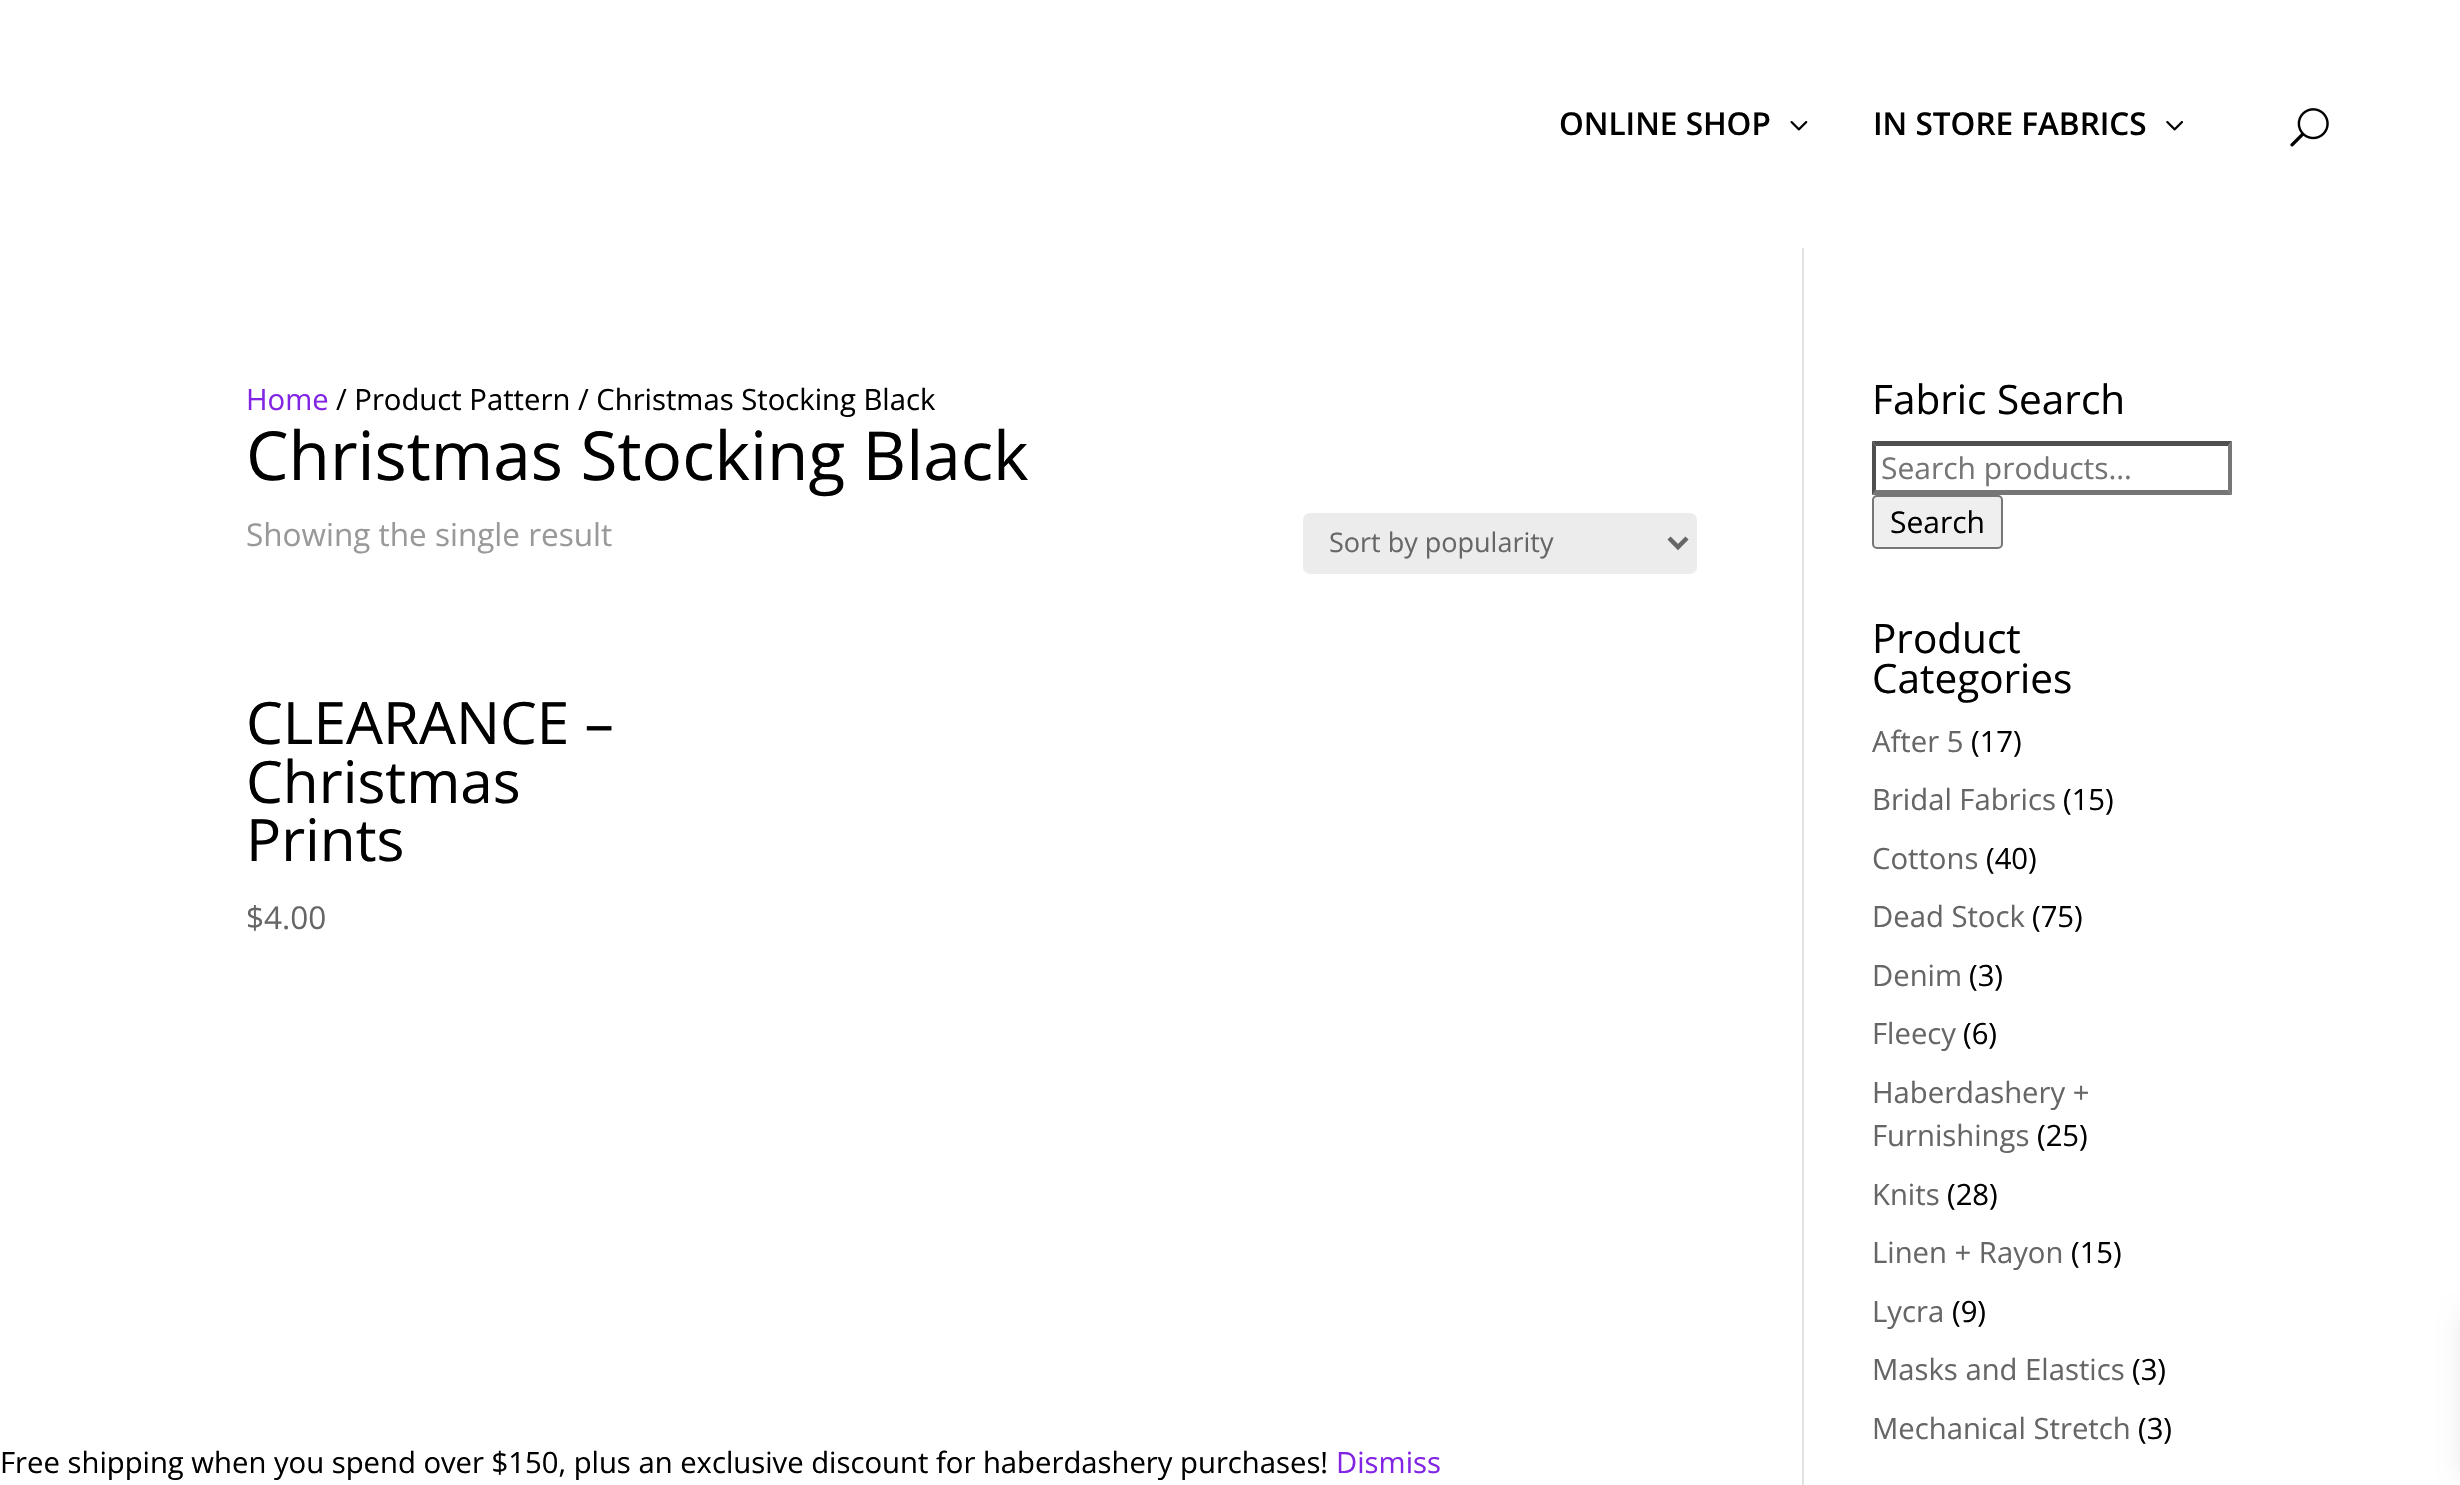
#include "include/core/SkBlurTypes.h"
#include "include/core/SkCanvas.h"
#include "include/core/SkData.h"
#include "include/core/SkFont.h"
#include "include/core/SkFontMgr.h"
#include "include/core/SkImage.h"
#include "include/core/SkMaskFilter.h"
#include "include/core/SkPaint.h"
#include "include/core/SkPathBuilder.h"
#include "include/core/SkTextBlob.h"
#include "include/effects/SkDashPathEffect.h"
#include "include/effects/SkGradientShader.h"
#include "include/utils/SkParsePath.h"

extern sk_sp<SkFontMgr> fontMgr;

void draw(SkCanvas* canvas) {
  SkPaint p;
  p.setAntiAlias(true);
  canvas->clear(SK_ColorWHITE);
  canvas->drawImageRect(SkImages::DeferredFromEncodedData(SkData::MakeFromFileName("images/1.png")), SkRect::MakeLTRB(1790, 121, 1808, 131), SkSamplingOptions());
  canvas->drawImageRect(SkImages::DeferredFromEncodedData(SkData::MakeFromFileName("images/2.png")), SkRect::MakeLTRB(2166, 121, 2183, 131), SkSamplingOptions());
  canvas->drawImageRect(SkImages::DeferredFromEncodedData(SkData::MakeFromFileName("images/3.png")), SkRect::MakeLTRB(2290, 108, 2329, 147), SkSamplingOptions());
  p.setColor(SkColorSetRGB(226, 226, 226));
  canvas->drawRect(SkRect::MakeLTRB(1802, 248, 1804, 1485), p);
  p.setColor(SkColorSetRGB(236, 236, 236));
  canvas->drawRoundRect(SkRect::MakeLTRB(1303, 513, 1697, 574), 7, 7, p);
  p.setStyle(SkPaint::kStroke_Style);
  p.setStrokeWidth(4.5f);
  p.setColor(SkColorSetRGB(102, 102, 102));
  canvas->drawPath(SkPathBuilder().moveTo(1669, 538).lineTo(1678, 547).lineTo(1687, 538).detach(), p);
  p.setStyle(SkPaint::kFill_Style);
  p.setColor(SkColorSetRGB(79, 79, 79));
  canvas->drawPath(SkPathBuilder().moveTo(1872, 441).lineTo(2232, 441).lineTo(2228, 446).lineTo(1876, 446).close().detach(), p);
  p.setColor(SkColorSetRGB(118, 118, 118));
  canvas->drawPath(SkPathBuilder().moveTo(2232, 441).lineTo(2232, 495).lineTo(2228, 490).lineTo(2228, 446).close().detach(), p);
  canvas->drawPath(SkPathBuilder().moveTo(2232, 495).lineTo(1872, 495).lineTo(1876, 490).lineTo(2228, 490).close().detach(), p);
  p.setColor(SkColorSetRGB(79, 79, 79));
  canvas->drawPath(SkPathBuilder().moveTo(1872, 495).lineTo(1872, 441).lineTo(1876, 446).lineTo(1876, 490).close().detach(), p);
  p.setColor(SkColorSetRGB(239, 239, 239));
  canvas->drawRoundRect(SkRect::MakeLTRB(1873, 496, 2002, 548), 4, 4, p);
  p.setStyle(SkPaint::kStroke_Style);
  p.setStrokeWidth(2);
  p.setColor(SkColorSetRGB(118, 118, 118));
  canvas->drawRoundRect(SkRect::MakeLTRB(1873, 496, 2002, 548), 4, 4, p);
  p.setStyle(SkPaint::kFill_Style);
  p.setColor(SkColorSetARGB(26, 0, 0, 0));
  p.setMaskFilter(SkMaskFilter::MakeBlur(kNormal_SkBlurStyle, 11));
  canvas->drawRect(SkRect::MakeLTRB(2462, 1316, 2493, 1474), p);
  p.setMaskFilter(nullptr);
  SkFont font1(fontMgr->matchFamilyStyle("Open Sans", SkFontStyle(600, SkFontStyle::kNormal_Width, SkFontStyle::kUpright_Slant)), 31.5f);
  font1.setSubpixel(true);
  p.setColor(SK_ColorBLACK);
  canvas->drawString("ONLINE SHOP", 1559, 135, font1, p);
  canvas->drawString("IN STORE FABRICS", 1873, 135, font1, p);
  SkFont font2(fontMgr->matchFamilyStyle("Open Sans", SkFontStyle::Normal()), 29.25f);
  font2.setSubpixel(true);
  p.setColor(SkColorSetRGB(130, 36, 227));
  canvas->drawString("Home", 246, 410, font2, p);
  p.setColor(SK_ColorBLACK);
  canvas->drawString("/ Product Pattern / Christmas Stocking Black", 336, 410, font2, p);
  SkFont font3(fontMgr->matchFamilyStyle("Open Sans", SkFontStyle::Normal()), 67.5f);
  font3.setSubpixel(true);
  canvas->drawString("Christmas Stocking Black", 246, 480, font3, p);
  SkFont font4(fontMgr->matchFamilyStyle("Open Sans", SkFontStyle::Normal()), 31.5f);
  font4.setSubpixel(true);
  p.setColor(SkColorSetRGB(153, 153, 153));
  canvas->drawString("Showing the single result", 246, 546, font4, p);
  SkFont font5(fontMgr->matchFamilyStyle("Open Sans", SkFontStyle::Normal()), 27);
  font5.setSubpixel(true);
  p.setColor(SkColorSetRGB(102, 102, 102));
  canvas->drawString("Sort by popularity", 1329, 552, font5, p);
  SkFont font6(fontMgr->matchFamilyStyle("Open Sans", SkFontStyle::Normal()), 58.5f);
  font6.setSubpixel(true);
  p.setColor(SK_ColorBLACK);
  canvas->drawString("CLEARANCE –", 246, 744, font6, p);
  canvas->drawString("Christmas", 246, 803, font6, p);
  canvas->drawString("Prints", 246, 861, font6, p);
  p.setColor(SkColorSetRGB(102, 102, 102));
  canvas->drawString("$4.00", 246, 929, font4, p);
  SkFont font7(fontMgr->matchFamilyStyle("Open Sans", SkFontStyle::Normal()), 40.5f);
  font7.setSubpixel(true);
  p.setColor(SK_ColorBLACK);
  canvas->drawString("Fabric Search", 1872, 414, font7, p);
  SkFont font8(fontMgr->matchFamilyStyle("Open Sans", SkFontStyle::Normal()), 30);
  font8.setSubpixel(true);
  p.setColor(SkColorSetRGB(117, 117, 117));
  canvas->drawString("Search products…", 1881, 479, font8, p);
  p.setColor(SK_ColorBLACK);
  canvas->drawString("Search", 1890, 533, font8, p);
  canvas->drawString("Product", 1872, 653, font7, p);
  canvas->drawString("Categories", 1872, 693, font7, p);
  p.setColor(SkColorSetRGB(102, 102, 102));
  canvas->drawString("After 5", 1872, 752, font2, p);
  p.setColor(SK_ColorBLACK);
  canvas->drawString("(17)", 1971, 752, font2, p);
  p.setColor(SkColorSetRGB(102, 102, 102));
  canvas->drawString("Bridal Fabrics", 1872, 810, font2, p);
  p.setColor(SK_ColorBLACK);
  canvas->drawString("(15)", 2063, 810, font2, p);
  p.setColor(SkColorSetRGB(102, 102, 102));
  canvas->drawString("Cottons", 1872, 869, font2, p);
  p.setColor(SK_ColorBLACK);
  canvas->drawString("(40)", 1986, 869, font2, p);
  p.setColor(SkColorSetRGB(102, 102, 102));
  canvas->drawString("Dead Stock", 1872, 927, font2, p);
  p.setColor(SK_ColorBLACK);
  canvas->drawString("(75)", 2032, 927, font2, p);
  p.setColor(SkColorSetRGB(102, 102, 102));
  canvas->drawString("Denim", 1872, 986, font2, p);
  p.setColor(SK_ColorBLACK);
  canvas->drawString("(3)", 1969, 986, font2, p);
  p.setColor(SkColorSetRGB(102, 102, 102));
  canvas->drawString("Fleecy", 1872, 1044, font2, p);
  p.setColor(SK_ColorBLACK);
  canvas->drawString("(6)", 1963, 1044, font2, p);
  p.setColor(SkColorSetRGB(102, 102, 102));
  canvas->drawString("Haberdashery +", 1872, 1103, font2, p);
  canvas->drawString("Furnishings", 1872, 1146, font2, p);
  p.setColor(SK_ColorBLACK);
  canvas->drawString("(25)", 2037, 1146, font2, p);
  p.setColor(SkColorSetRGB(102, 102, 102));
  canvas->drawString("Knits", 1872, 1205, font2, p);
  p.setColor(SK_ColorBLACK);
  canvas->drawString("(28)", 1947, 1205, font2, p);
  p.setColor(SkColorSetRGB(102, 102, 102));
  canvas->drawString("Linen + Rayon", 1872, 1263, font2, p);
  p.setColor(SK_ColorBLACK);
  canvas->drawString("(15)", 2071, 1263, font2, p);
  p.setColor(SkColorSetRGB(102, 102, 102));
  canvas->drawString("Lycra", 1872, 1322, font2, p);
  p.setColor(SK_ColorBLACK);
  canvas->drawString("(9)", 1952, 1322, font2, p);
  p.setColor(SkColorSetRGB(102, 102, 102));
  canvas->drawString("Masks and Elastics", 1872, 1380, font2, p);
  p.setColor(SK_ColorBLACK);
  canvas->drawString("(3)", 2132, 1380, font2, p);
  p.setColor(SkColorSetRGB(102, 102, 102));
  canvas->drawString("Mechanical Stretch", 1872, 1439, font2, p);
  p.setColor(SK_ColorBLACK);
  canvas->drawString("(3)", 2138, 1439, font2, p);
  canvas->drawString("Free shipping when you spend over $150, plus an exclusive discount for haberdashery purchases!", 0, 1473, font2, p);
  p.setColor(SkColorSetRGB(130, 36, 227));
  canvas->drawString("Dismiss", 1336, 1473, font2, p);
}
